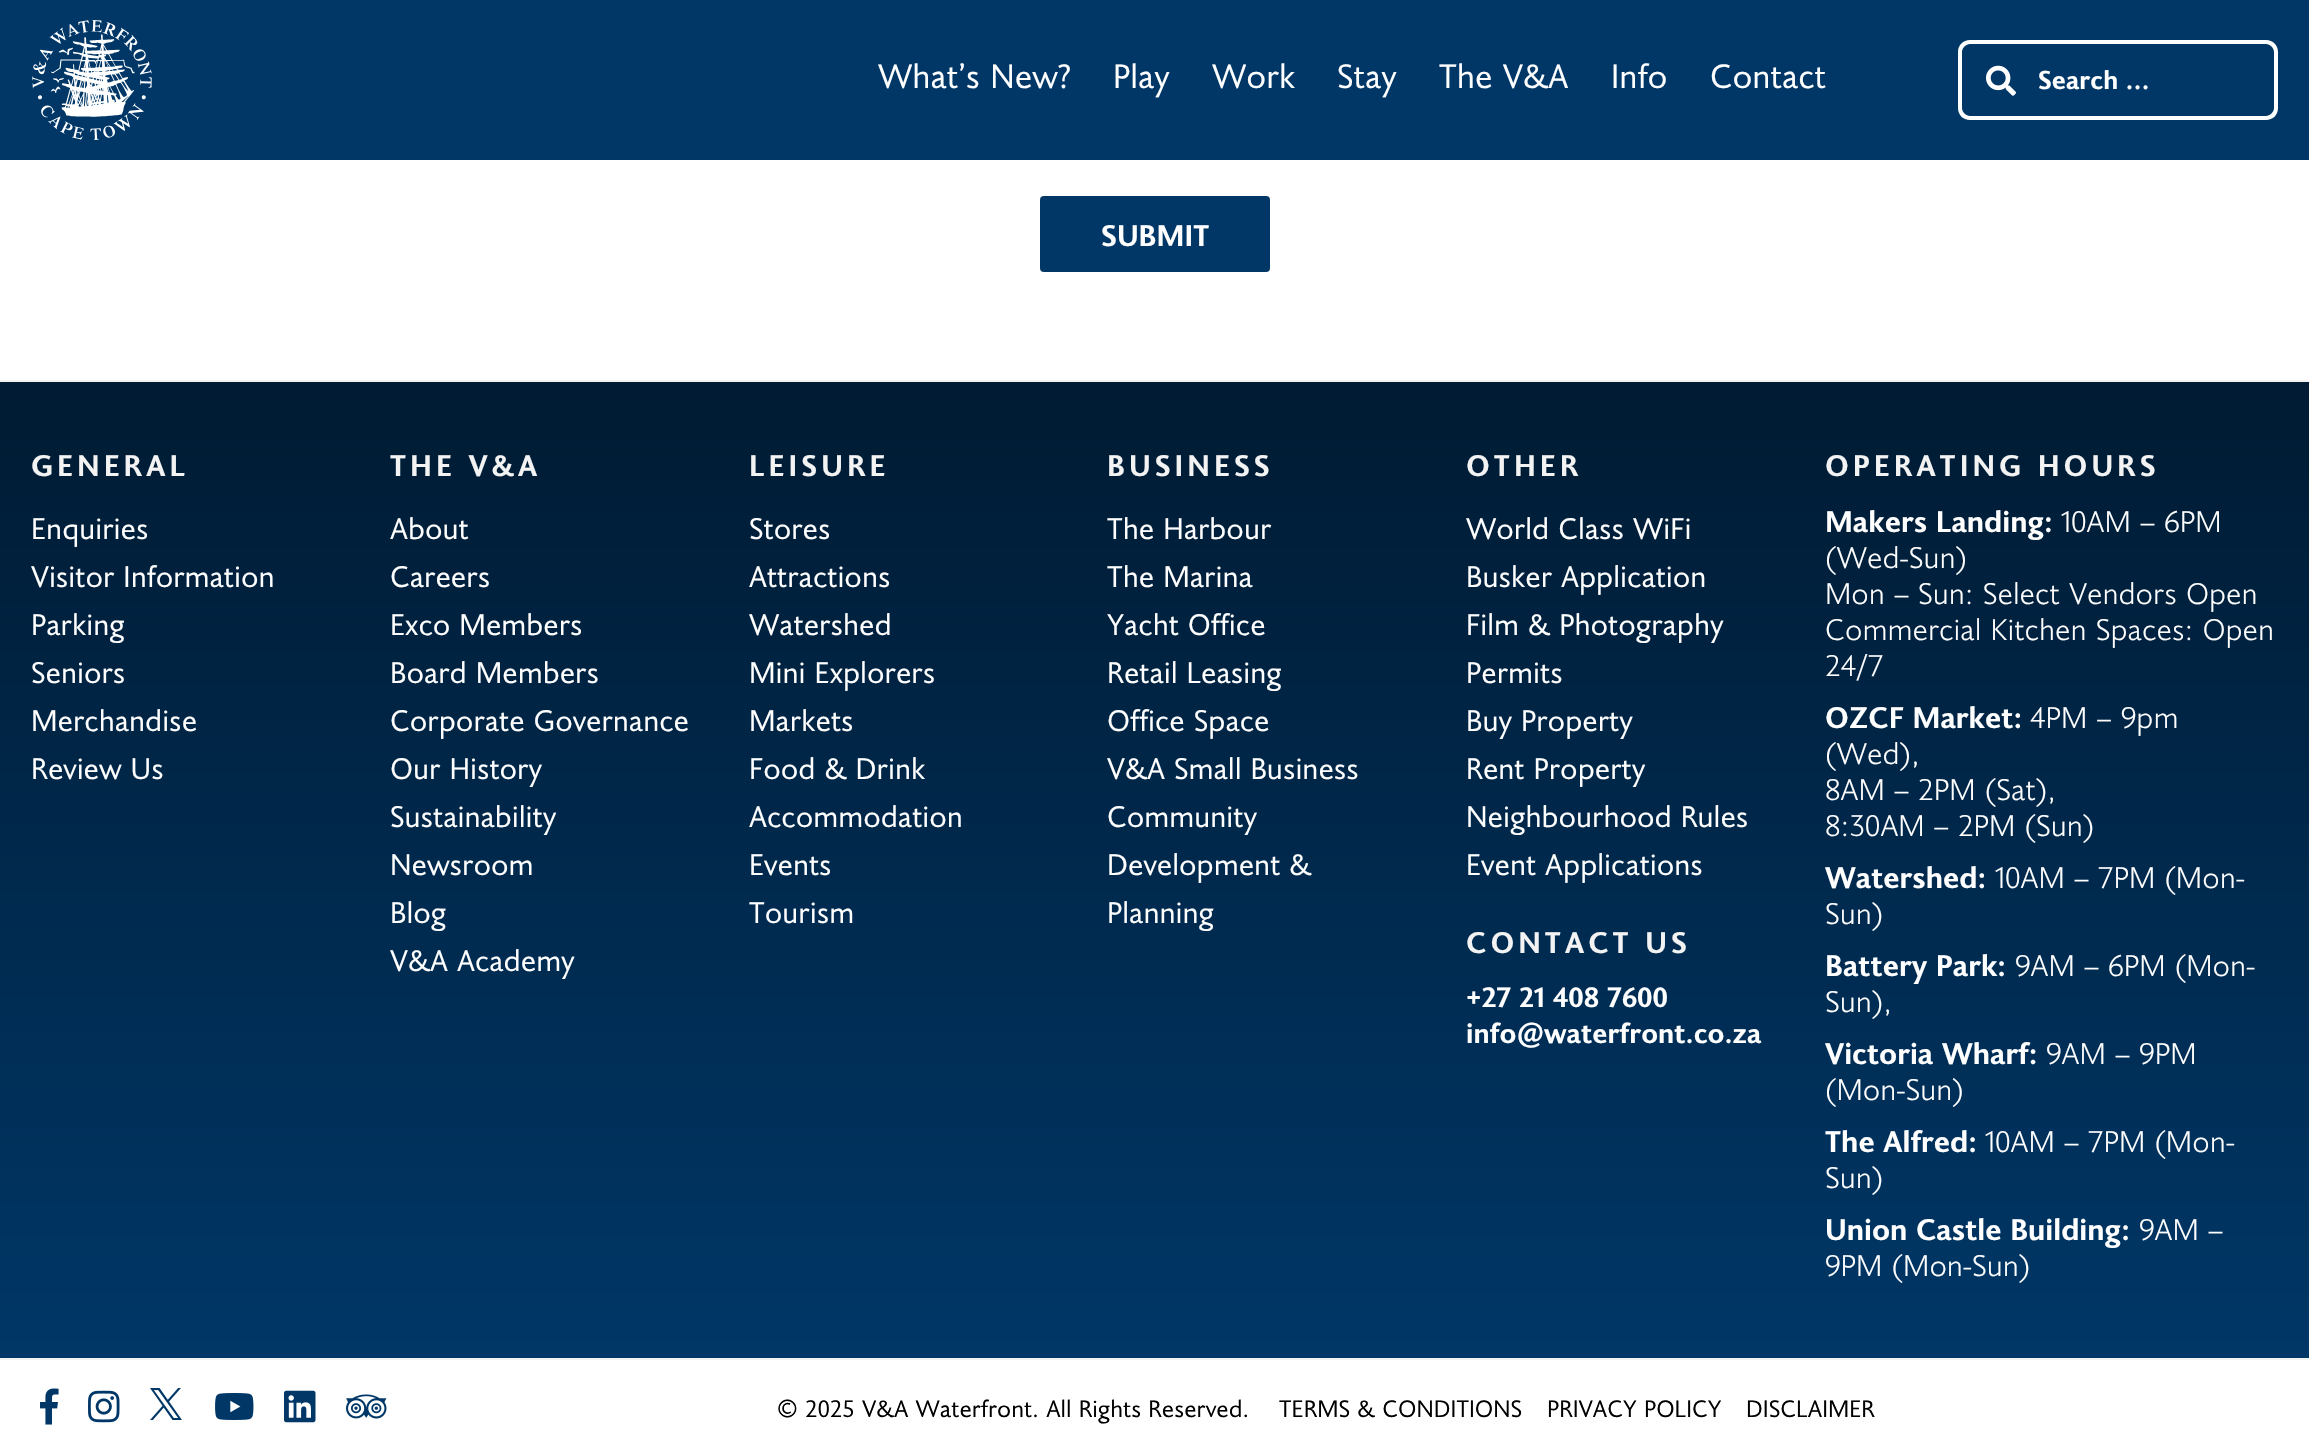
#include "include/core/SkBlurTypes.h"
#include "include/core/SkCanvas.h"
#include "include/core/SkData.h"
#include "include/core/SkFont.h"
#include "include/core/SkFontMgr.h"
#include "include/core/SkImage.h"
#include "include/core/SkMaskFilter.h"
#include "include/core/SkPaint.h"
#include "include/core/SkPathBuilder.h"
#include "include/core/SkTextBlob.h"
#include "include/effects/SkDashPathEffect.h"
#include "include/effects/SkGradientShader.h"
#include "include/utils/SkParsePath.h"

extern sk_sp<SkFontMgr> fontMgr;

void draw(SkCanvas* canvas) {
  SkPaint p;
  p.setAntiAlias(true);
  auto spacedText = [&](const char* s, float x, float y, const SkFont& font, const SkPaint& ink, float letter, float word) {
    std::vector<SkGlyphID> glyphs(font.countText(s, strlen(s), SkTextEncoding::kUTF8));
    std::vector<float> xs(glyphs.size());
    font.textToGlyphs(s, strlen(s), SkTextEncoding::kUTF8, glyphs);
    font.getXPos(glyphs, xs, x);
    float extra = 0;
    for (size_t i = 0; i < glyphs.size(); i++) {
      xs[i] += extra;
      extra += letter + word * (glyphs[i] == font.unicharToGlyph(' '));
    }
    canvas->drawTextBlob(SkTextBlob::MakeFromPosHGlyphs(glyphs, xs, y, font), 0, 0, ink);
  };
  canvas->clear(SK_ColorWHITE);
  p.setColor(SkColorSetRGB(0, 55, 103));
  canvas->drawRect(SkRect::MakeLTRB(0, 0, 2309, 160), p);
  canvas->drawImageRect(SkImages::DeferredFromEncodedData(SkData::MakeFromFileName("images/1.png")), SkRect::MakeLTRB(32, 20, 152, 140), SkSamplingOptions());
  p.setColor(SK_ColorWHITE);
  canvas->drawPath(SkPathBuilder(SkPathFillType::kEvenOdd).moveTo(1970, 40).lineTo(2038, 40).lineTo(2038, 120).lineTo(1970, 120).cubicTo(1963, 120, 1958, 115, 1958, 108).lineTo(1958, 52).cubicTo(1958, 45, 1963, 40, 1970, 40).close().moveTo(1970, 44).lineTo(2038, 44).lineTo(2038, 116).lineTo(1970, 116).cubicTo(1966, 116, 1962, 112, 1962, 108).lineTo(1962, 52).cubicTo(1962, 48, 1966, 44, 1970, 44).close().detach(), p);
  canvas->drawImageRect(SkImages::DeferredFromEncodedData(SkData::MakeFromFileName("images/2.png")), SkRect::MakeLTRB(1986, 65, 2016, 96), SkSamplingOptions());
  canvas->drawPath(SkPathBuilder(SkPathFillType::kEvenOdd).moveTo(2038, 40).lineTo(2266, 40).cubicTo(2273, 40, 2278, 45, 2278, 52).lineTo(2278, 108).cubicTo(2278, 115, 2273, 120, 2266, 120).lineTo(2038, 120).close().moveTo(2038, 44).lineTo(2266, 44).cubicTo(2270, 44, 2274, 48, 2274, 52).lineTo(2274, 108).cubicTo(2274, 112, 2270, 116, 2266, 116).lineTo(2038, 116).close().detach(), p);
  p.setColor(SkColorSetRGB(0, 55, 103));
  canvas->drawRoundRect(SkRect::MakeLTRB(1040, 196, 1270, 272), 4, 4, p);
  {
    const SkColor colors[] = {SkColorSetRGB(0, 27, 51), SkColorSetRGB(0, 55, 103)};
    const float stops[] = {0.01f, 1};
    const SkPoint ends[] = {{1155, 382}, {1155, 1358}};
    p.setShader(SkGradientShader::MakeLinear(ends, colors, stops, 2, SkTileMode::kClamp));
    p.setAlpha(255);
  }
  canvas->drawRect(SkRect::MakeLTRB(0, 382, 2309, 1358), p);
  p.setShader(nullptr);
  p.setColor(SkColorSetRGB(243, 243, 243));
  canvas->drawRect(SkRect::MakeLTRB(0, 380, 2309, 382), p);
  canvas->drawRect(SkRect::MakeLTRB(0, 1358, 2309, 1360), p);
  canvas->drawImageRect(SkImages::DeferredFromEncodedData(SkData::MakeFromFileName("images/3.png")), SkRect::MakeLTRB(40, 1388, 59, 1425), SkSamplingOptions());
  canvas->drawImageRect(SkImages::DeferredFromEncodedData(SkData::MakeFromFileName("images/4.png")), SkRect::MakeLTRB(88, 1390, 120, 1423), SkSamplingOptions());
  canvas->drawImageRect(SkImages::DeferredFromEncodedData(SkData::MakeFromFileName("images/5.png")), SkRect::MakeLTRB(150, 1388, 182, 1420), SkSamplingOptions());
  canvas->drawImageRect(SkImages::DeferredFromEncodedData(SkData::MakeFromFileName("images/6.png")), SkRect::MakeLTRB(215, 1393, 254, 1420), SkSamplingOptions());
  canvas->drawImageRect(SkImages::DeferredFromEncodedData(SkData::MakeFromFileName("images/7.png")), SkRect::MakeLTRB(284, 1390, 316, 1423), SkSamplingOptions());
  canvas->drawImageRect(SkImages::DeferredFromEncodedData(SkData::MakeFromFileName("images/8.png")), SkRect::MakeLTRB(346, 1394, 387, 1419), SkSamplingOptions());
  SkFont font1(fontMgr->matchFamilyStyle("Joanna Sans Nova", SkFontStyle::Normal()), 34);
  font1.setSubpixel(true);
  p.setColor(SK_ColorWHITE);
  canvas->drawString("What’s New?", 878, 88, font1, p);
  canvas->drawString("Play", 1113, 88, font1, p);
  canvas->drawString("Work", 1212, 88, font1, p);
  canvas->drawString("Stay", 1337, 88, font1, p);
  canvas->drawString("The V&A", 1439, 88, font1, p);
  canvas->drawString("Info", 1611, 88, font1, p);
  canvas->drawString("Contact", 1710, 88, font1, p);
  SkFont font2(fontMgr->matchFamilyStyle("Joanna Sans Nova", SkFontStyle::Bold()), 26);
  font2.setSubpixel(true);
  canvas->drawString("Search …", 2038, 89, font2, p);
  SkFont font3(fontMgr->matchFamilyStyle("Joanna Sans Nova", SkFontStyle::Bold()), 30);
  font3.setSubpixel(true);
  canvas->drawString("SUBMIT", 1101, 246, font3, p);
  p.setColor(SkColorSetRGB(243, 243, 243));
  spacedText("GENERAL", 31, 476, font3, p, 4, 0);
  SkFont font4(fontMgr->matchFamilyStyle("Joanna Sans Nova", SkFontStyle::Normal()), 30);
  font4.setSubpixel(true);
  p.setColor(SK_ColorWHITE);
  canvas->drawString("Enquiries", 31, 539, font4, p);
  canvas->drawString("Visitor Information", 31, 587, font4, p);
  canvas->drawString("Parking", 31, 635, font4, p);
  canvas->drawString("Seniors", 31, 683, font4, p);
  canvas->drawString("Merchandise", 31, 731, font4, p);
  canvas->drawString("Review Us", 31, 779, font4, p);
  p.setColor(SkColorSetRGB(243, 243, 243));
  spacedText("THE V&A", 390, 476, font3, p, 4, 0);
  p.setColor(SK_ColorWHITE);
  canvas->drawString("About", 390, 539, font4, p);
  canvas->drawString("Careers", 390, 587, font4, p);
  canvas->drawString("Exco Members", 390, 635, font4, p);
  canvas->drawString("Board Members", 390, 683, font4, p);
  canvas->drawString("Corporate Governance", 390, 731, font4, p);
  canvas->drawString("Our History", 390, 779, font4, p);
  canvas->drawString("Sustainability", 390, 827, font4, p);
  canvas->drawString("Newsroom", 390, 875, font4, p);
  canvas->drawString("Blog", 390, 923, font4, p);
  canvas->drawString("V&A Academy", 390, 971, font4, p);
  p.setColor(SkColorSetRGB(243, 243, 243));
  spacedText("LEISURE", 749, 476, font3, p, 4, 0);
  p.setColor(SK_ColorWHITE);
  canvas->drawString("Stores", 749, 539, font4, p);
  canvas->drawString("Attractions", 749, 587, font4, p);
  canvas->drawString("Watershed", 749, 635, font4, p);
  canvas->drawString("Mini Explorers", 749, 683, font4, p);
  canvas->drawString("Markets", 749, 731, font4, p);
  canvas->drawString("Food & Drink", 749, 779, font4, p);
  canvas->drawString("Accommodation", 749, 827, font4, p);
  canvas->drawString("Events", 749, 875, font4, p);
  canvas->drawString("Tourism", 749, 923, font4, p);
  p.setColor(SkColorSetRGB(243, 243, 243));
  spacedText("BUSINESS", 1107, 476, font3, p, 4, 0);
  p.setColor(SK_ColorWHITE);
  canvas->drawString("The Harbour", 1107, 539, font4, p);
  canvas->drawString("The Marina", 1107, 587, font4, p);
  canvas->drawString("Yacht Office", 1107, 635, font4, p);
  canvas->drawString("Retail Leasing", 1107, 683, font4, p);
  canvas->drawString("Office Space", 1107, 731, font4, p);
  canvas->drawString("V&A Small Business", 1107, 779, font4, p);
  canvas->drawString("Community", 1107, 827, font4, p);
  canvas->drawString("Development &", 1107, 875, font4, p);
  canvas->drawString("Planning", 1107, 923, font4, p);
  p.setColor(SkColorSetRGB(243, 243, 243));
  spacedText("OTHER", 1466, 476, font3, p, 4, 0);
  p.setColor(SK_ColorWHITE);
  canvas->drawString("World Class WiFi", 1466, 539, font4, p);
  canvas->drawString("Busker Application", 1466, 587, font4, p);
  canvas->drawString("Film & Photography", 1466, 635, font4, p);
  canvas->drawString("Permits", 1466, 683, font4, p);
  canvas->drawString("Buy Property", 1466, 731, font4, p);
  canvas->drawString("Rent Property", 1466, 779, font4, p);
  canvas->drawString("Neighbourhood Rules", 1466, 827, font4, p);
  canvas->drawString("Event Applications", 1466, 875, font4, p);
  p.setColor(SkColorSetRGB(243, 243, 243));
  spacedText("CONTACT US", 1466, 953, font3, p, 4, 0);
  SkFont font5(fontMgr->matchFamilyStyle("Joanna Sans Nova", SkFontStyle::Bold()), 28);
  font5.setSubpixel(true);
  p.setColor(SK_ColorWHITE);
  canvas->drawString("+27 21 408 7600", 1466, 1007, font5, p);
  canvas->drawString("info@waterfront.co.za", 1466, 1043, font5, p);
  p.setColor(SkColorSetRGB(243, 243, 243));
  spacedText("OPERATING HOURS", 1825, 476, font3, p, 4, 0);
  p.setColor(SK_ColorWHITE);
  canvas->drawString("Makers Landing:", 1825, 532, font3, p);
  SkFont font6(fontMgr->matchFamilyStyle("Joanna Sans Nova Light", SkFontStyle(300, SkFontStyle::kNormal_Width, SkFontStyle::kUpright_Slant)), 30);
  font6.setSubpixel(true);
  canvas->drawString("10AM – 6PM", 2061, 532, font6, p);
  canvas->drawString("(Wed-Sun)", 1825, 568, font6, p);
  canvas->drawString("Mon – Sun: Select Vendors Open", 1825, 604, font6, p);
  canvas->drawString("Commercial Kitchen Spaces: Open", 1825, 640, font6, p);
  canvas->drawString("24/7", 1825, 676, font6, p);
  canvas->drawString("OZCF Market:", 1825, 728, font3, p);
  canvas->drawString("4PM – 9pm", 2030, 728, font6, p);
  canvas->drawString("(Wed),", 1825, 764, font6, p);
  canvas->drawString("8AM – 2PM (Sat),", 1825, 800, font6, p);
  canvas->drawString("8:30AM – 2PM (Sun)", 1825, 836, font6, p);
  canvas->drawString("Watershed:", 1825, 888, font3, p);
  canvas->drawString("10AM – 7PM (Mon-", 1995, 888, font6, p);
  canvas->drawString("Sun)", 1825, 924, font6, p);
  canvas->drawString("Battery Park:", 1825, 976, font3, p);
  canvas->drawString("9AM – 6PM (Mon-", 2015, 976, font6, p);
  canvas->drawString("Sun),", 1825, 1012, font6, p);
  canvas->drawString("Victoria Wharf:", 1825, 1064, font3, p);
  canvas->drawString("9AM – 9PM", 2046, 1064, font6, p);
  canvas->drawString("(Mon-Sun)", 1825, 1100, font6, p);
  canvas->drawString("The Alfred:", 1825, 1152, font3, p);
  canvas->drawString("10AM – 7PM (Mon-", 1985, 1152, font6, p);
  canvas->drawString("Sun)", 1825, 1188, font6, p);
  canvas->drawString("Union Castle Building:", 1825, 1240, font3, p);
  canvas->drawString("9AM –", 2139, 1240, font6, p);
  canvas->drawString("9PM (Mon-Sun)", 1825, 1276, font6, p);
  SkFont font7(fontMgr->matchFamilyStyle("Joanna Sans Nova", SkFontStyle::Normal()), 24);
  font7.setSubpixel(true);
  p.setColor(SK_ColorBLACK);
  canvas->drawString("© 2025 V&A Waterfront. All Rights Reserved.", 777, 1417, font7, p);
  canvas->drawString("TERMS & CONDITIONS", 1279, 1417, font7, p);
  canvas->drawString("PRIVACY POLICY", 1547, 1417, font7, p);
  canvas->drawString("DISCLAIMER", 1746, 1417, font7, p);
}
